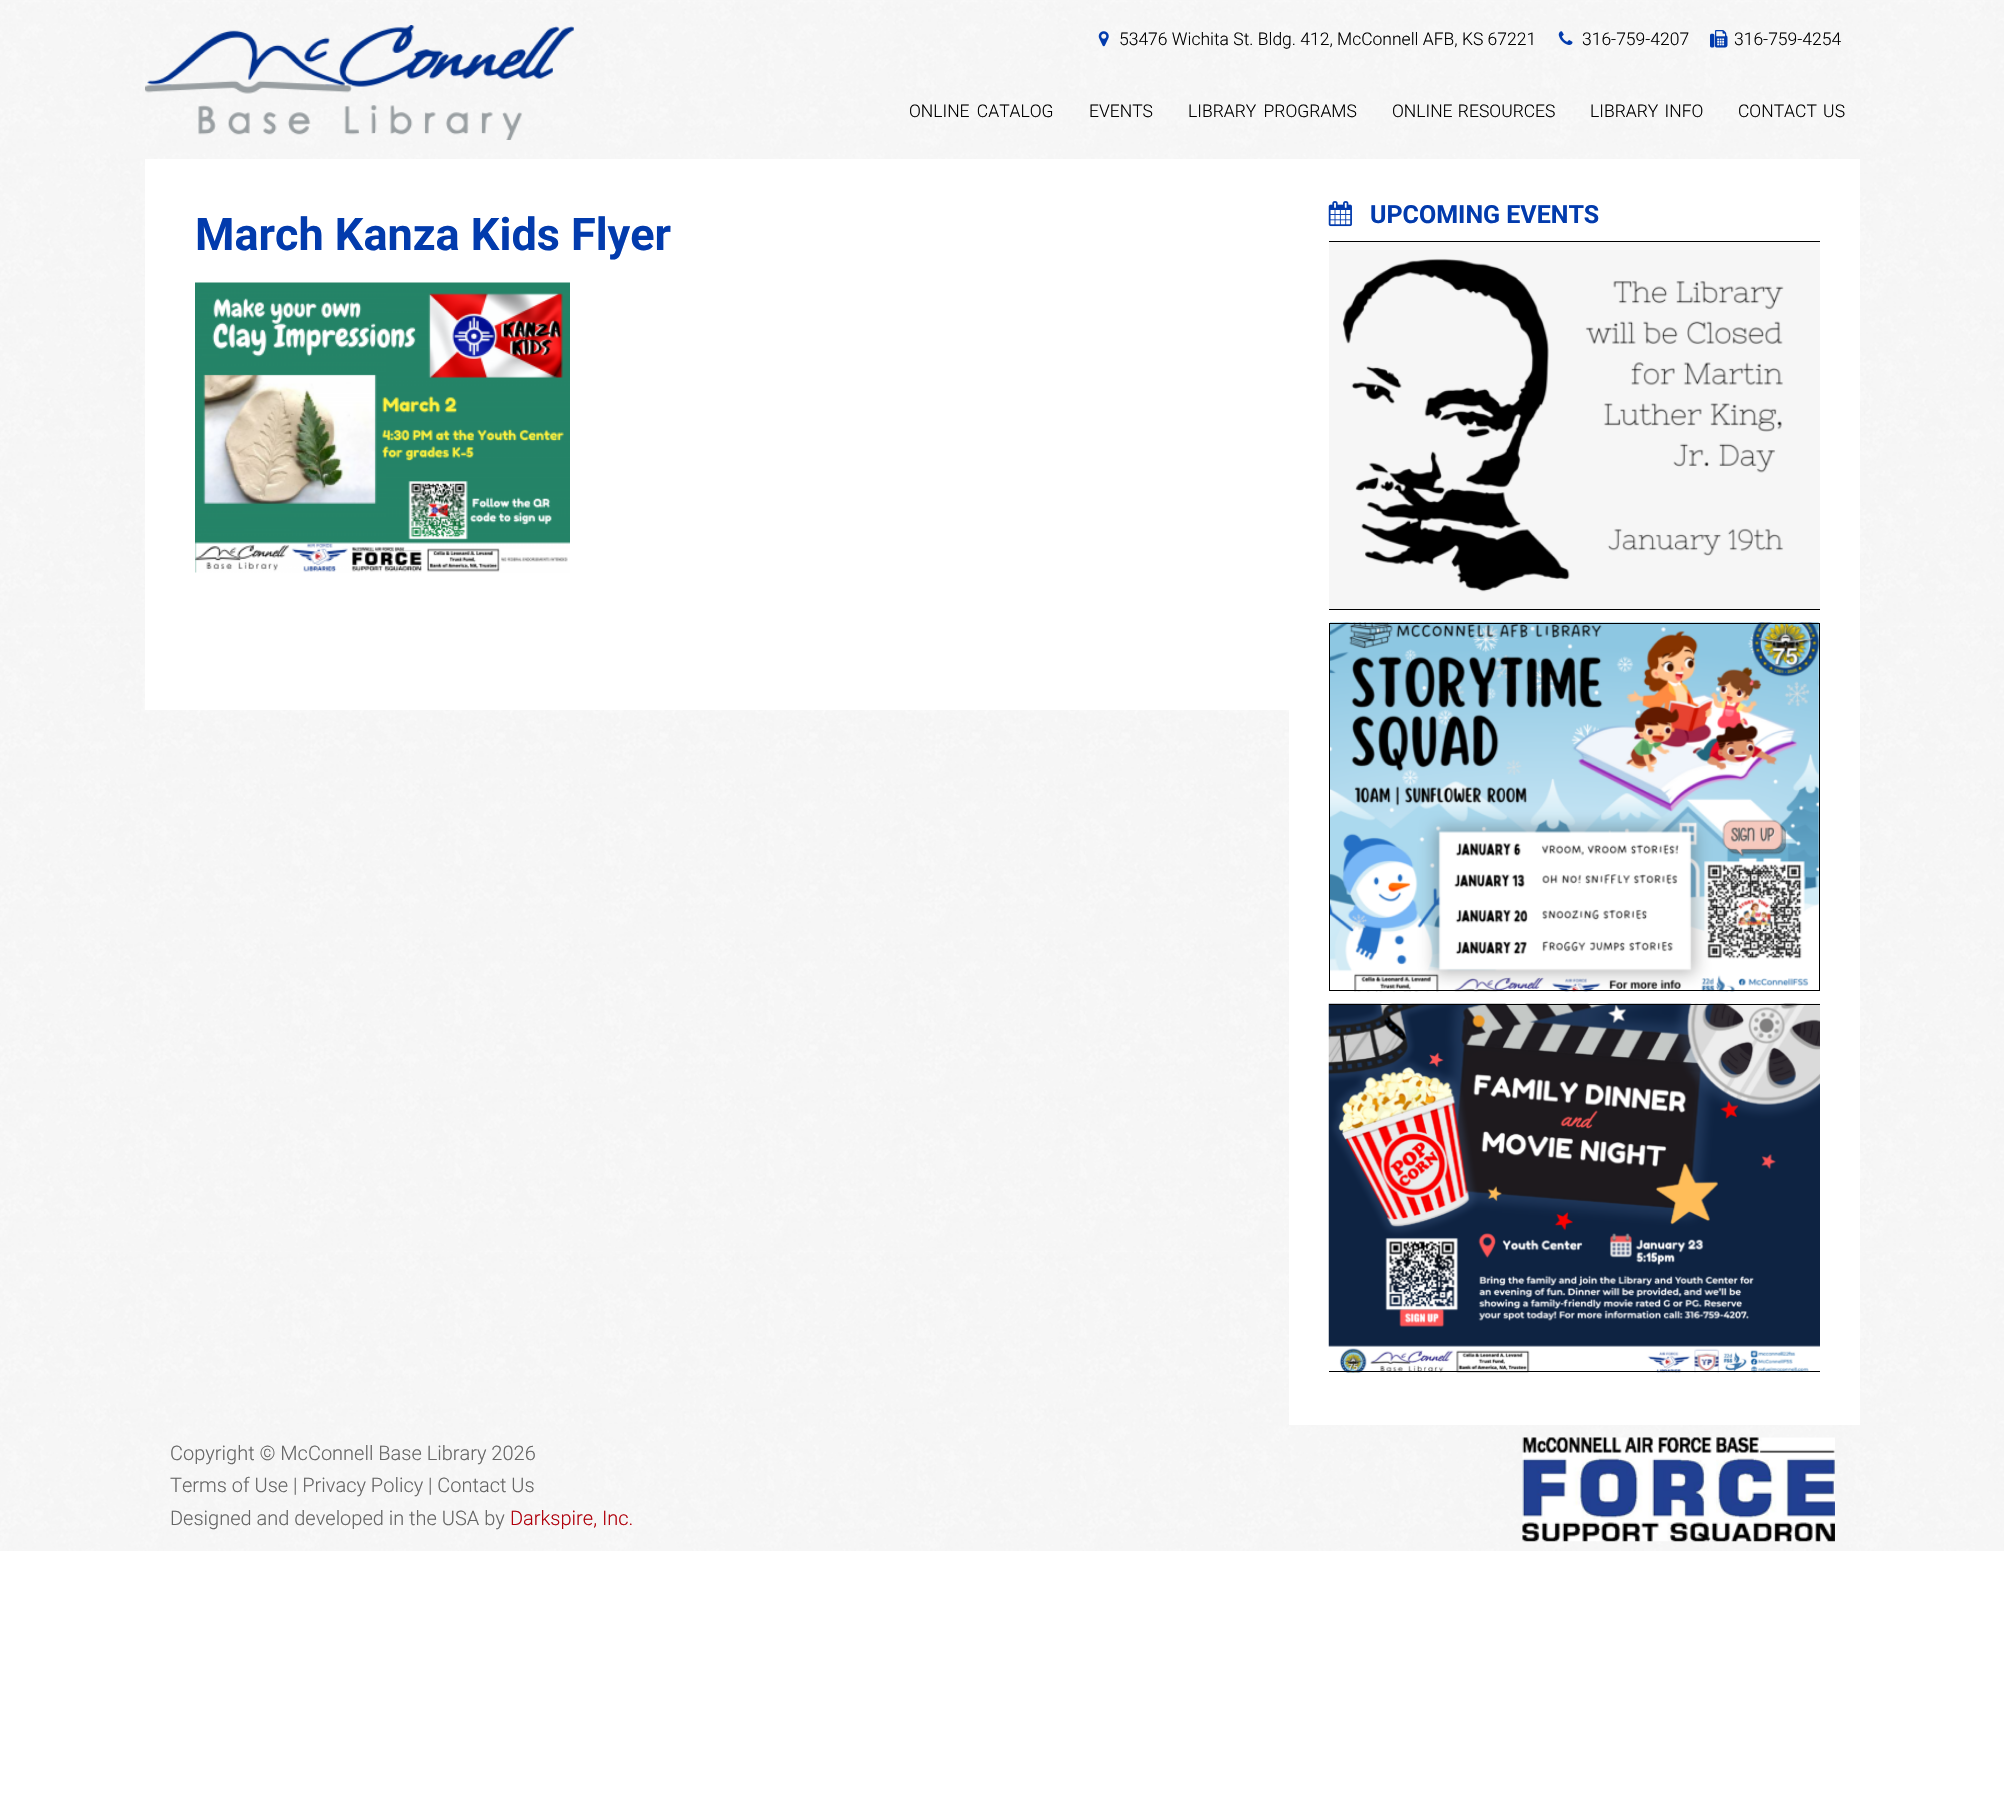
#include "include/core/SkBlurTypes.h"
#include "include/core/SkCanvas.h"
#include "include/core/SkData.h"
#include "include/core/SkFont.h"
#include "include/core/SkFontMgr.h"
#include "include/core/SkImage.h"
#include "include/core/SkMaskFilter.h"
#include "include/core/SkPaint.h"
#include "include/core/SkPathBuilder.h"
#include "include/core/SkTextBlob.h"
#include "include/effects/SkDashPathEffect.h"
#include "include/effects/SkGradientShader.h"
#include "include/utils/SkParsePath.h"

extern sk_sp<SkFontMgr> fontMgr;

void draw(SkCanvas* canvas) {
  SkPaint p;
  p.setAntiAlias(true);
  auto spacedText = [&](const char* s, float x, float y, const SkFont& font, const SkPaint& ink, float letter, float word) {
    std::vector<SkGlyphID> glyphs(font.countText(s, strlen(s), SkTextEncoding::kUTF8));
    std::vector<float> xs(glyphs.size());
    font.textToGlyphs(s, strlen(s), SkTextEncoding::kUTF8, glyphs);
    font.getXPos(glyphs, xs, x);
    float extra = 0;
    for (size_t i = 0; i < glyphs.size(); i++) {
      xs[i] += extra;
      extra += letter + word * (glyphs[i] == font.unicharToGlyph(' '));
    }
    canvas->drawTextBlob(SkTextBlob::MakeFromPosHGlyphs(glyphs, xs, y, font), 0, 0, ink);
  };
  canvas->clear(SK_ColorWHITE);
  canvas->drawImageRect(SkImages::DeferredFromEncodedData(SkData::MakeFromFileName("images/1.png")), SkRect::MakeLTRB(0, 0, 2004, 1551), SkSamplingOptions());
  canvas->drawImageRect(SkImages::DeferredFromEncodedData(SkData::MakeFromFileName("images/2.png")), SkRect::MakeLTRB(145, 25, 574, 140), SkSamplingOptions());
  canvas->drawImageRect(SkImages::DeferredFromEncodedData(SkData::MakeFromFileName("images/3.png")), SkRect::MakeLTRB(1098, 31, 1109, 47), SkSamplingOptions());
  canvas->drawImageRect(SkImages::DeferredFromEncodedData(SkData::MakeFromFileName("images/4.png")), SkRect::MakeLTRB(1558, 31, 1573, 45), SkSamplingOptions());
  canvas->drawImageRect(SkImages::DeferredFromEncodedData(SkData::MakeFromFileName("images/5.png")), SkRect::MakeLTRB(1710, 30, 1728, 48), SkSamplingOptions());
  p.setColor(SK_ColorWHITE);
  canvas->drawRect(SkRect::MakeLTRB(145, 159, 1289, 710), p);
  canvas->drawImageRect(SkImages::DeferredFromEncodedData(SkData::MakeFromFileName("images/6.png")), SkRect::MakeLTRB(195, 282, 570, 573), SkSamplingOptions());
  canvas->drawRect(SkRect::MakeLTRB(1289, 159, 1860, 1425), p);
  canvas->drawImageRect(SkImages::DeferredFromEncodedData(SkData::MakeFromFileName("images/7.png")), SkRect::MakeLTRB(1328, 201, 1352, 227), SkSamplingOptions());
  canvas->drawImageRect(SkImages::DeferredFromEncodedData(SkData::MakeFromFileName("images/8.png")), SkRect::MakeLTRB(1329, 242, 1820, 609), SkSamplingOptions());
  p.setColor(SK_ColorBLACK);
  canvas->drawRect(SkRect::MakeLTRB(1329, 241, 1820, 242), p);
  canvas->drawRect(SkRect::MakeLTRB(1329, 609, 1820, 610), p);
  canvas->drawImageRect(SkImages::DeferredFromEncodedData(SkData::MakeFromFileName("images/9.png")), SkRect::MakeLTRB(1330, 622, 1819, 992), SkSamplingOptions());
  p.setStyle(SkPaint::kStroke_Style);
  p.setStrokeWidth(1);
  canvas->drawRect(SkRect::MakeLTRB(1329.5f, 623.5f, 1819.5f, 990.5f), p);
  canvas->drawImageRect(SkImages::DeferredFromEncodedData(SkData::MakeFromFileName("images/10.png")), SkRect::MakeLTRB(1328, 1003, 1820, 1373), SkSamplingOptions());
  p.setStyle(SkPaint::kFill_Style);
  canvas->drawRect(SkRect::MakeLTRB(1329, 1004, 1820, 1005), p);
  canvas->drawRect(SkRect::MakeLTRB(1329, 1371, 1820, 1372), p);
  canvas->drawImageRect(SkImages::DeferredFromEncodedData(SkData::MakeFromFileName("images/11.png")), SkRect::MakeLTRB(1522, 1437, 1835, 1542), SkSamplingOptions());
  SkFont font1(fontMgr->matchFamilyStyle("Roboto", SkFontStyle(300, SkFontStyle::kNormal_Width, SkFontStyle::kUpright_Slant)), 17.5f);
  font1.setSubpixel(true);
  canvas->drawString("53476 Wichita St. Bldg. 412, McConnell AFB, KS 67221", 1119, 45, font1, p);
  canvas->drawString("316-759-4207", 1582, 45, font1, p);
  canvas->drawString("316-759-4254", 1734, 45, font1, p);
  spacedText("ONLINE CATALOG", 909, 117, font1, p, 0, 3);
  canvas->drawString("EVENTS", 1089, 117, font1, p);
  spacedText("LIBRARY PROGRAMS", 1188, 117, font1, p, 0, 3);
  spacedText("ONLINE RESOURCES", 1392, 117, font1, p, 0, 1);
  spacedText("LIBRARY INFO", 1590, 117, font1, p, 0, 2);
  spacedText("CONTACT US", 1738, 117, font1, p, 0, 2);
  SkFont font2(fontMgr->matchFamilyStyle("Roboto", SkFontStyle::Bold()), 45);
  font2.setSubpixel(true);
  p.setColor(SkColorSetRGB(2, 59, 173));
  canvas->drawString("March Kanza Kids Flyer", 195, 250, font2, p);
  SkFont font3(fontMgr->matchFamilyStyle("Roboto", SkFontStyle::Bold()), 25);
  font3.setSubpixel(true);
  canvas->drawString("UPCOMING EVENTS", 1370, 223, font3, p);
  SkFont font4(fontMgr->matchFamilyStyle("Roboto", SkFontStyle(300, SkFontStyle::kNormal_Width, SkFontStyle::kUpright_Slant)), 20);
  font4.setSubpixel(true);
  p.setColor(SkColorSetRGB(102, 102, 102));
  canvas->drawString("Copyright © McConnell Base Library 2026", 170, 1460, font4, p);
  canvas->drawString("Terms of Use | Privacy Policy | Contact Us", 170, 1492, font4, p);
  canvas->drawString("Designed and developed in the USA by", 170, 1525, font4, p);
  p.setColor(SkColorSetRGB(176, 0, 11));
  canvas->drawString("Darkspire, Inc.", 510, 1525, font4, p);
}
